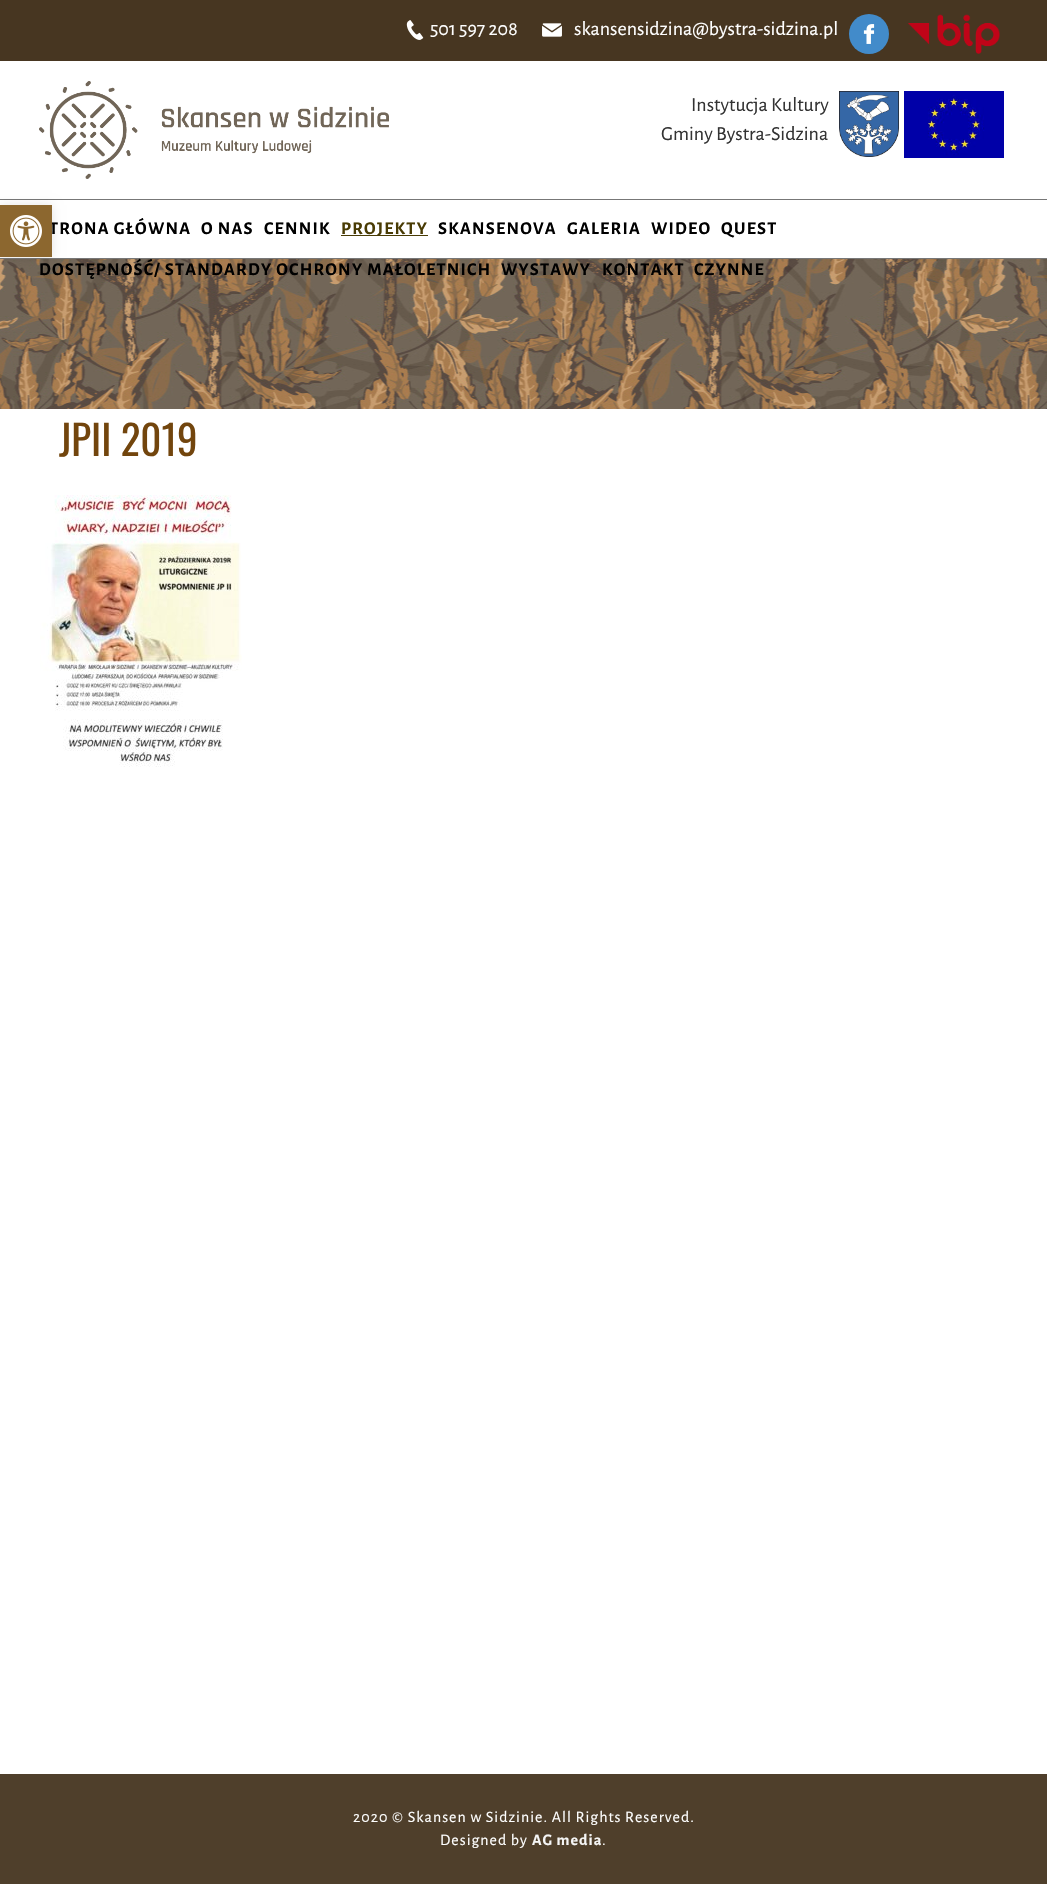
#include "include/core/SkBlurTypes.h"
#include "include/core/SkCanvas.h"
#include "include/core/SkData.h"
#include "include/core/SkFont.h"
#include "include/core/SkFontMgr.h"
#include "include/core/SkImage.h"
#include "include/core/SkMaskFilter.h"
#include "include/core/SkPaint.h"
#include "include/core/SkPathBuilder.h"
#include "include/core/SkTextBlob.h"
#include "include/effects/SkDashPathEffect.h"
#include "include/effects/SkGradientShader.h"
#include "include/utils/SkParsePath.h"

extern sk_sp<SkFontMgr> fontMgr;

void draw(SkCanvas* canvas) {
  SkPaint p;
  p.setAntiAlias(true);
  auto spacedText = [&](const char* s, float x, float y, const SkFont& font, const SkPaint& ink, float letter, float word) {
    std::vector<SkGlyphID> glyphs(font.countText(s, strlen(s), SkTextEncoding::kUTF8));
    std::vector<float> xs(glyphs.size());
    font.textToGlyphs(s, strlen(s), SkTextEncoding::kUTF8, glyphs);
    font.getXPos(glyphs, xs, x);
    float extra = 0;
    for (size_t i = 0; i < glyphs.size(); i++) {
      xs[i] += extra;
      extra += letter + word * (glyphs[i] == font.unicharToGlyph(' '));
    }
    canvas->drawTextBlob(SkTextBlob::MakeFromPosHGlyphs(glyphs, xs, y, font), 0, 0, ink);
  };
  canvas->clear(SK_ColorWHITE);
  p.setColor(SkColorSetRGB(119, 119, 119));
  canvas->drawRect(SkRect::MakeLTRB(0, 199, 1047, 200), p);
  canvas->drawRect(SkRect::MakeLTRB(0, 258, 1047, 259), p);
  canvas->drawImageRect(SkImages::DeferredFromEncodedData(SkData::MakeFromFileName("images/9.png")), SkRect::MakeLTRB(0, 259, 1047, 409), SkSamplingOptions());
  p.setColor(SkColorSetARGB(26, 0, 0, 0));
  p.setMaskFilter(SkMaskFilter::MakeBlur(kNormal_SkBlurStyle, 5));
  canvas->drawRect(SkRect::MakeLTRB(0, 205, 52, 257), p);
  p.setMaskFilter(nullptr);
  p.setColor(SkColorSetRGB(71, 54, 33));
  canvas->drawRect(SkRect::MakeLTRB(0, 0, 1047, 61), p);
  canvas->drawImageRect(SkImages::DeferredFromEncodedData(SkData::MakeFromFileName("images/2.png")), SkRect::MakeLTRB(406, 20, 424, 40), SkSamplingOptions());
  canvas->drawImageRect(SkImages::DeferredFromEncodedData(SkData::MakeFromFileName("images/3.png")), SkRect::MakeLTRB(542, 23, 562, 37), SkSamplingOptions());
  p.setColor(SkColorSetRGB(66, 139, 202));
  canvas->drawCircle(869, 34, 20, p);
  canvas->drawImageRect(SkImages::DeferredFromEncodedData(SkData::MakeFromFileName("images/4.png")), SkRect::MakeLTRB(863, 24, 875, 44), SkSamplingOptions());
  canvas->drawImageRect(SkImages::DeferredFromEncodedData(SkData::MakeFromFileName("images/5.png")), SkRect::MakeLTRB(908, 14, 1000, 54), SkSamplingOptions());
  canvas->drawImageRect(SkImages::DeferredFromEncodedData(SkData::MakeFromFileName("images/6.png")), SkRect::MakeLTRB(39, 81, 389, 179), SkSamplingOptions());
  canvas->drawImageRect(SkImages::DeferredFromEncodedData(SkData::MakeFromFileName("images/7.png")), SkRect::MakeLTRB(839, 91, 899, 157), SkSamplingOptions());
  canvas->drawImageRect(SkImages::DeferredFromEncodedData(SkData::MakeFromFileName("images/8.png")), SkRect::MakeLTRB(904, 91, 1004, 158), SkSamplingOptions());
  p.setColor(SkColorSetRGB(73, 59, 4));
  canvas->drawRect(SkRect::MakeLTRB(341, 235, 428, 236), p);
  canvas->drawImageRect(SkImages::DeferredFromEncodedData(SkData::MakeFromFileName("images/10.png")), SkRect::MakeLTRB(40, 495, 242, 767), SkSamplingOptions());
  p.setColor(SkColorSetRGB(79, 63, 43));
  canvas->drawRect(SkRect::MakeLTRB(0, 1774, 1047, 1884), p);
  SkFont font1(fontMgr->matchFamilyStyle("Alegreya Sans", SkFontStyle::Normal()), 20);
  font1.setSubpixel(true);
  p.setColor(SK_ColorWHITE);
  canvas->drawString("501 597 208", 430, 35, font1, p);
  canvas->drawString("skansensidzina@bystra-sidzina.pl", 574, 35, font1, p);
  p.setColor(SkColorSetRGB(51, 51, 51));
  canvas->drawString("Instytucja Kultury", 691, 111, font1, p);
  canvas->drawString("Gminy Bystra-Sidzina", 661, 140, font1, p);
  SkFont font2(fontMgr->matchFamilyStyle("Alegreya Sans", SkFontStyle::Bold()), 18);
  font2.setSubpixel(true);
  p.setColor(SK_ColorBLACK);
  spacedText("TRONA GŁÓWNA", 49, 234, font2, p, 1.25f, 0);
  p.setColor(SkColorSetRGB(140, 103, 47));
  canvas->drawRect(SkRect::MakeLTRB(0, 205, 52, 257), p);
  canvas->drawImageRect(SkImages::DeferredFromEncodedData(SkData::MakeFromFileName("images/1.png")), SkRect::MakeLTRB(10, 215, 42, 247), SkSamplingOptions());
  p.setColor(SK_ColorBLACK);
  spacedText("O NAS", 201, 234, font2, p, 1.25f, 0);
  spacedText("CENNIK", 264, 234, font2, p, 1.25f, 0);
  p.setColor(SkColorSetRGB(73, 59, 4));
  spacedText("PROJEKTY", 341, 234, font2, p, 1.25f, 0);
  p.setColor(SK_ColorBLACK);
  spacedText("SKANSENOVA", 438, 234, font2, p, 1.25f, 0);
  spacedText("GALERIA", 567, 234, font2, p, 1.25f, 0);
  spacedText("WIDEO", 651, 234, font2, p, 1.25f, 0);
  spacedText("QUEST", 721, 234, font2, p, 1.25f, 0);
  spacedText("DOSTĘPNOŚĆ/ STANDARDY OCHRONY MAŁOLETNICH", 39, 275, font2, p, 1.25f, 0);
  spacedText("WYSTAWY", 501, 275, font2, p, 1.25f, 0);
  spacedText("KONTAKT", 602, 275, font2, p, 1.25f, 0);
  spacedText("CZYNNE", 694, 275, font2, p, 1.25f, 0);
  SkFont font3(fontMgr->matchFamilyStyle("Oswald", SkFontStyle::Normal()), 41);
  font3.setSubpixel(true);
  p.setColor(SkColorSetRGB(114, 69, 13));
  canvas->drawString("JPII 2019", 59, 456, font3, p);
  SkFont font4(fontMgr->matchFamilyStyle("Alegreya Sans", SkFontStyle::Normal()), 16);
  font4.setSubpixel(true);
  p.setColor(SK_ColorWHITE);
  spacedText("2020 © Skansen w Sidzinie. All Rights Reserved.", 353, 1822, font4, p, 1, 0);
  spacedText("Designed by", 440, 1845, font4, p, 1, 0);
  SkFont font5(fontMgr->matchFamilyStyle("Alegreya Sans", SkFontStyle::Bold()), 16);
  font5.setSubpixel(true);
  p.setColor(SkColorSetRGB(245, 245, 245));
  spacedText("AG media", 532, 1845, font5, p, 1, 0);
  p.setColor(SK_ColorWHITE);
  spacedText(".", 602, 1845, font4, p, 1, 0);
}
